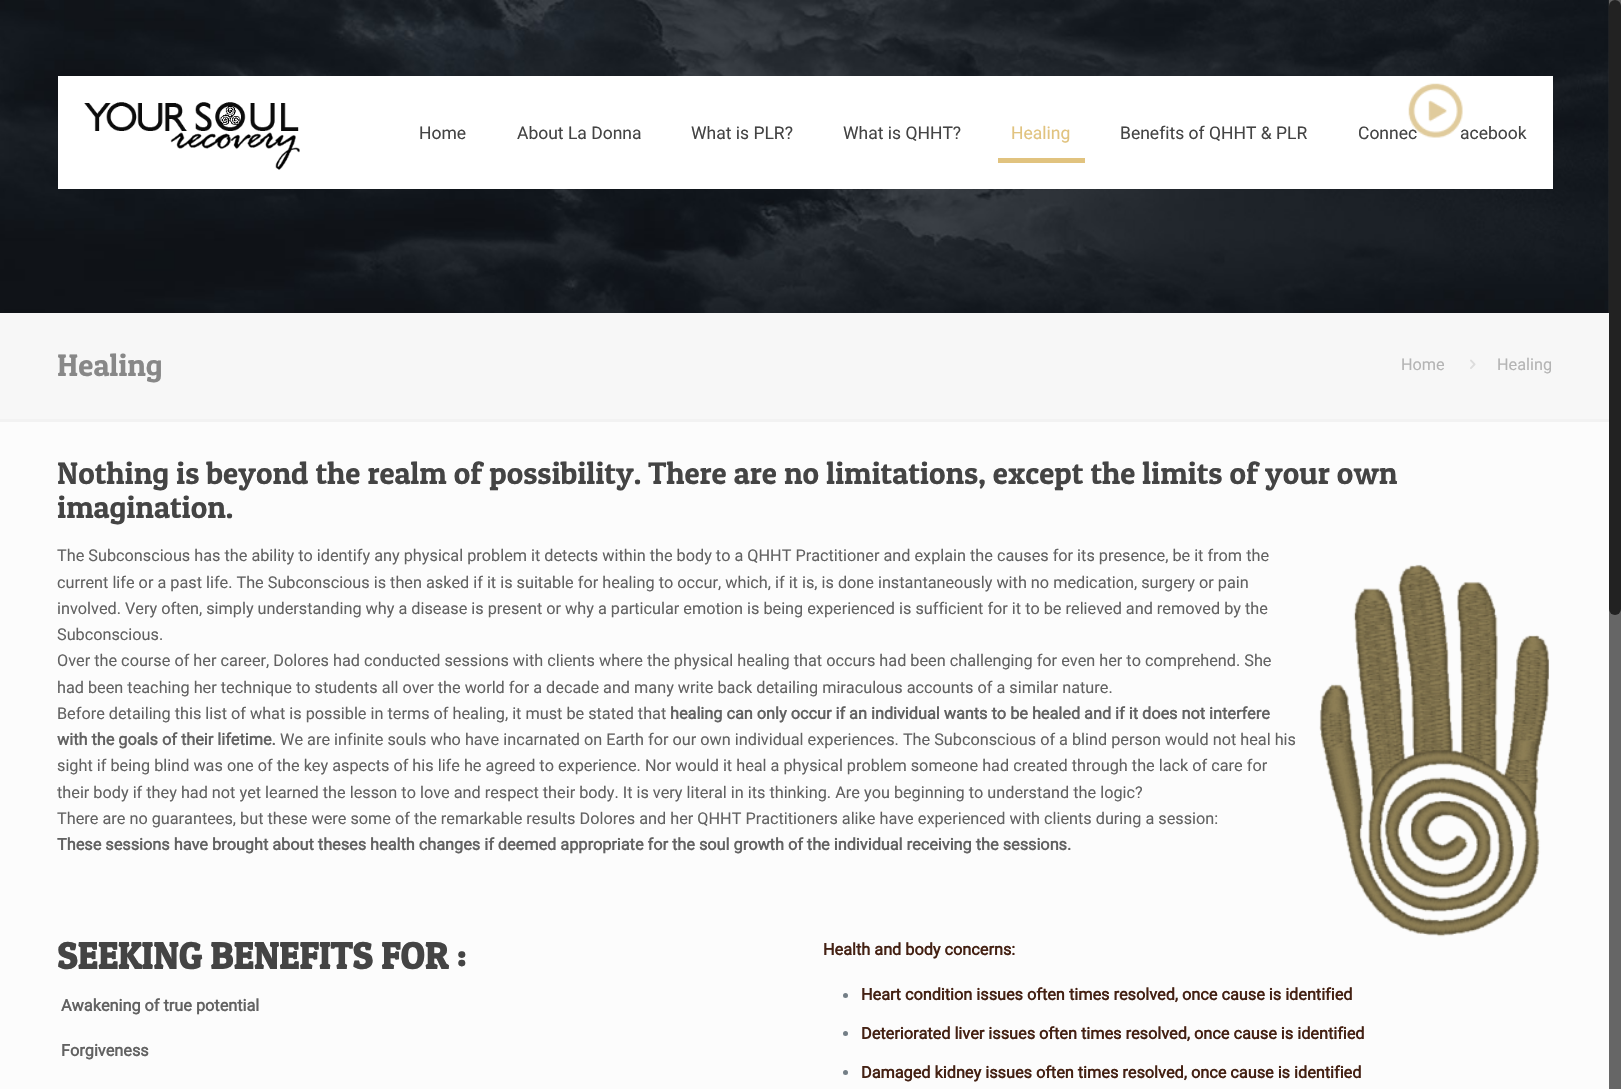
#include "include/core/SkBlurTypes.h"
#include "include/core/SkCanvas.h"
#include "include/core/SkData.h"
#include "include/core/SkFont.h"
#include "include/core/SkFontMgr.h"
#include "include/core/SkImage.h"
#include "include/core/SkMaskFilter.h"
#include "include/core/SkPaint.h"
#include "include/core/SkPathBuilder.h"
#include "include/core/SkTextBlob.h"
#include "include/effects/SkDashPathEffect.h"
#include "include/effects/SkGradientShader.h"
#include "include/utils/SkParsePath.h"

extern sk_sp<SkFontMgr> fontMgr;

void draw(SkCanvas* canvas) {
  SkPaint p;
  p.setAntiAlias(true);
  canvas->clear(SkColorSetRGB(252, 252, 252));
  p.setColor(SkColorSetRGB(102, 102, 102));
  canvas->drawRect(SkRect::MakeLTRB(1609, 0, 1621, 1089), p);
  p.setColor(SkColorSetRGB(34, 34, 34));
  canvas->drawRoundRect(SkRect::MakeLTRB(1609, 0, 1621, 615), 6, 6, p);
  p.setColor(SkColorSetRGB(46, 46, 45));
  canvas->drawRect(SkRect::MakeLTRB(1608, 0, 1609, 313), p);
  canvas->drawImageRect(SkImages::DeferredFromEncodedData(SkData::MakeFromFileName("images/2.png")), SkRect::MakeLTRB(0, 0, 1609, 313), SkSamplingOptions());
  p.setColor(SK_ColorWHITE);
  canvas->drawRect(SkRect::MakeLTRB(58, 76, 1553, 189), p);
  canvas->drawImageRect(SkImages::DeferredFromEncodedData(SkData::MakeFromFileName("images/3.png")), SkRect::MakeLTRB(84, 102, 300, 170), SkSamplingOptions());
  p.setColor(SkColorSetRGB(225, 195, 127));
  canvas->drawRect(SkRect::MakeLTRB(998, 158, 1085, 163), p);
  p.setColor(SkColorSetRGB(247, 247, 247));
  canvas->drawRect(SkRect::MakeLTRB(0, 313, 1609, 419), p);
  canvas->drawImageRect(SkImages::DeferredFromEncodedData(SkData::MakeFromFileName("images/4.png")), SkRect::MakeLTRB(1470, 359, 1476, 369), SkSamplingOptions());
  p.setColor(SkColorSetRGB(242, 242, 242));
  canvas->drawRect(SkRect::MakeLTRB(0, 419, 1609, 422), p);
  canvas->drawImageRect(SkImages::DeferredFromEncodedData(SkData::MakeFromFileName("images/5.png")), SkRect::MakeLTRB(1319, 564, 1550, 937), SkSamplingOptions());
  p.setColor(SkColorSetRGB(115, 126, 134));
  canvas->drawCircle(845.5f, 995.5f, 2.5f, p);
  canvas->drawCircle(845.5f, 1033.5f, 2.5f, p);
  canvas->drawCircle(845.5f, 1072.5f, 2.5f, p);
  SkFont font1(fontMgr->matchFamilyStyle("Roboto", SkFontStyle::Normal()), 17.5f);
  font1.setSubpixel(true);
  p.setColor(SkColorSetRGB(68, 68, 68));
  canvas->drawString("Home", 419, 139, font1, p);
  canvas->drawString("About La Donna", 517, 139, font1, p);
  canvas->drawString("What is PLR?", 691, 139, font1, p);
  canvas->drawString("What is QHHT?", 843, 139, font1, p);
  p.setColor(SkColorSetRGB(225, 195, 127));
  canvas->drawString("Healing", 1011, 139, font1, p);
  p.setColor(SkColorSetRGB(68, 68, 68));
  canvas->drawString("Benefits of QHHT & PLR", 1120, 139, font1, p);
  canvas->drawString("Connec", 1358, 139, font1, p);
  canvas->drawString("acebook", 1460, 139, font1, p);
  canvas->drawImageRect(SkImages::DeferredFromEncodedData(SkData::MakeFromFileName("images/1.png")), SkRect::MakeLTRB(1408, 83, 1463, 138), SkSamplingOptions());
  SkFont font2(fontMgr->matchFamilyStyle("Patua One", SkFontStyle::Normal()), 31.25f);
  font2.setSubpixel(true);
  p.setColor(SkColorSetRGB(136, 136, 136));
  canvas->drawString("Healing", 57, 376, font2, p);
  SkFont font3(fontMgr->matchFamilyStyle("Roboto", SkFontStyle::Normal()), 16.25f);
  font3.setSubpixel(true);
  p.setColor(SkColorSetRGB(180, 180, 180));
  canvas->drawString("Home", 1401, 370, font3, p);
  canvas->drawString("Healing", 1497, 370, font3, p);
  p.setColor(SkColorSetRGB(68, 68, 68));
  canvas->drawString("Nothing is beyond the realm of possibility. There are no limitations, except the limits of your own", 57, 484, font2, p);
  canvas->drawString("imagination.", 57, 518, font2, p);
  p.setColor(SkColorSetRGB(98, 98, 98));
  canvas->drawString("The Subconscious has the ability to identify any physical problem it detects within the body to a QHHT Practitioner and explain the causes for its presence, be it from the", 57, 561, font3, p);
  canvas->drawString("current life or a past life. The Subconscious is then asked if it is suitable for healing to occur, which, if it is, is done instantaneously with no medication, surgery or pain", 57, 588, font3, p);
  canvas->drawString("involved. Very often, simply understanding why a disease is present or why a particular emotion is being experienced is sufficient for it to be relieved and removed by the", 57, 614, font3, p);
  canvas->drawString("Subconscious.", 57, 640, font3, p);
  canvas->drawString("Over the course of her career, Dolores had conducted sessions with clients where the physical healing that occurs had been challenging for even her to comprehend. She", 57, 666, font3, p);
  canvas->drawString("had been teaching her technique to students all over the world for a decade and many write back detailing miraculous accounts of a similar nature.", 57, 693, font3, p);
  canvas->drawString("Before detailing this list of what is possible in terms of healing, it must be stated that", 57, 719, font3, p);
  SkFont font4(fontMgr->matchFamilyStyle("Roboto", SkFontStyle::Bold()), 16.25f);
  font4.setSubpixel(true);
  canvas->drawString("healing can only occur if an individual wants to be healed and if it does not interfere", 670, 719, font4, p);
  canvas->drawString("with the goals of their lifetime.", 57, 745, font4, p);
  canvas->drawString("We are infinite souls who have incarnated on Earth for our own individual experiences. The Subconscious of a blind person would not heal his", 280, 745, font3, p);
  canvas->drawString("sight if being blind was one of the key aspects of his life he agreed to experience. Nor would it heal a physical problem someone had created through the lack of care for", 57, 771, font3, p);
  canvas->drawString("their body if they had not yet learned the lesson to love and respect their body. It is very literal in its thinking. Are you beginning to understand the logic?", 57, 798, font3, p);
  canvas->drawString("There are no guarantees, but these were some of the remarkable results Dolores and her QHHT Practitioners alike have experienced with clients during a session:", 57, 824, font3, p);
  canvas->drawString("These sessions have brought about theses health changes if deemed appropriate for the soul growth of the individual receiving the sessions.", 57, 850, font4, p);
  SkFont font5(fontMgr->matchFamilyStyle("Patua One", SkFontStyle::Bold()), 37.5f);
  font5.setSubpixel(true);
  p.setColor(SkColorSetRGB(68, 68, 68));
  canvas->drawString("SEEKING BENEFITS FOR :", 57, 969, font5, p);
  p.setColor(SkColorSetRGB(98, 98, 98));
  canvas->drawString("Awakening of true potential", 61, 1011, font4, p);
  canvas->drawString("Forgiveness", 61, 1056, font4, p);
  p.setColor(SkColorSetRGB(68, 33, 19));
  canvas->drawString("Health and body concerns:", 823, 955, font4, p);
  canvas->drawString("Heart condition issues often times resolved, once cause is identified", 861, 1000, font4, p);
  canvas->drawString("Deteriorated liver issues often times resolved, once cause is identified", 861, 1039, font4, p);
  canvas->drawString("Damaged kidney issues often times resolved, once cause is identified", 861, 1078, font4, p);
}
